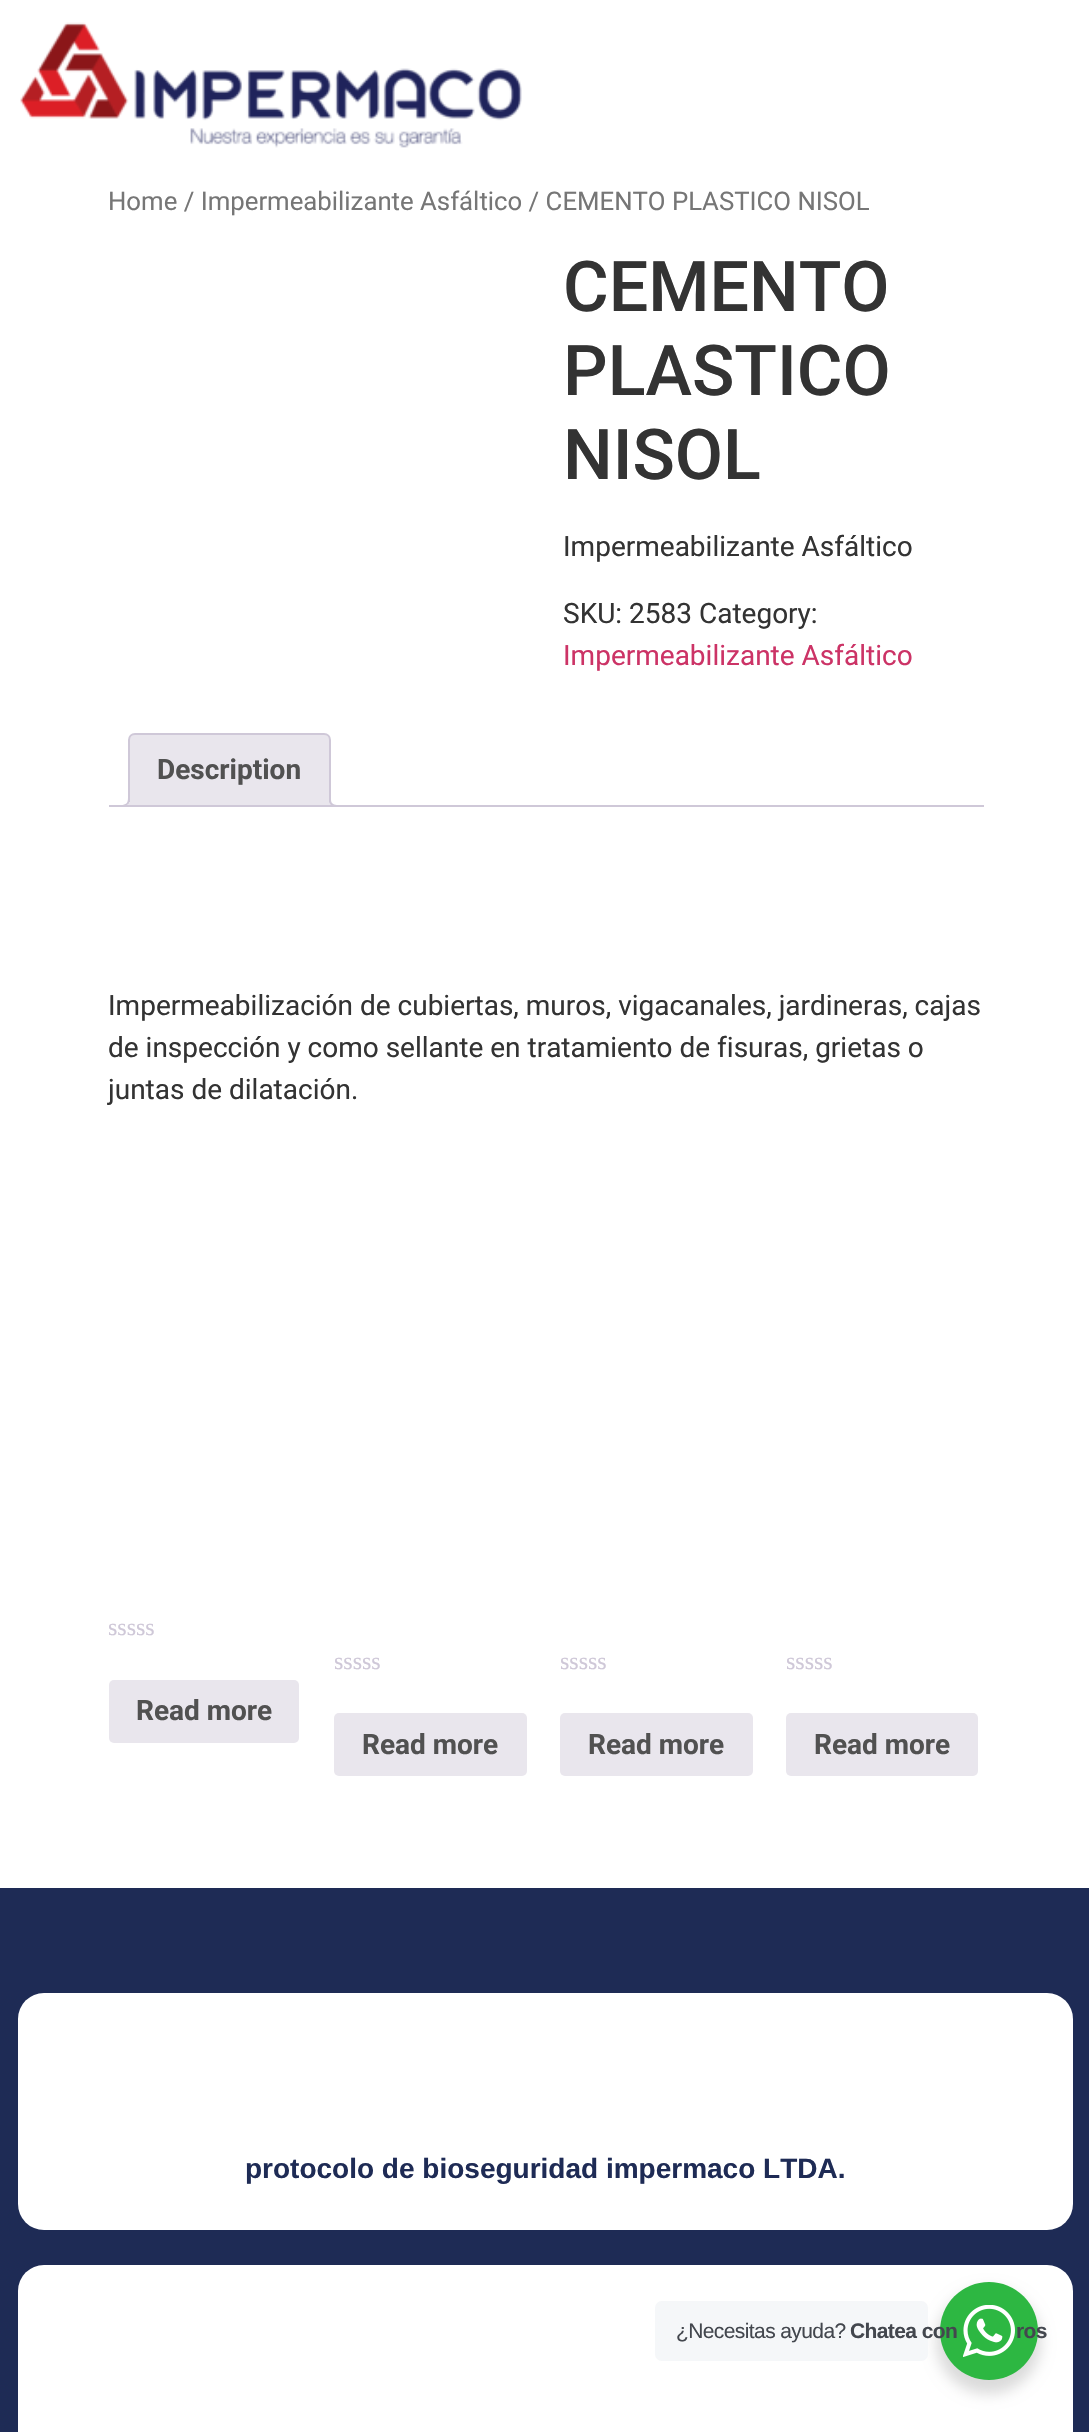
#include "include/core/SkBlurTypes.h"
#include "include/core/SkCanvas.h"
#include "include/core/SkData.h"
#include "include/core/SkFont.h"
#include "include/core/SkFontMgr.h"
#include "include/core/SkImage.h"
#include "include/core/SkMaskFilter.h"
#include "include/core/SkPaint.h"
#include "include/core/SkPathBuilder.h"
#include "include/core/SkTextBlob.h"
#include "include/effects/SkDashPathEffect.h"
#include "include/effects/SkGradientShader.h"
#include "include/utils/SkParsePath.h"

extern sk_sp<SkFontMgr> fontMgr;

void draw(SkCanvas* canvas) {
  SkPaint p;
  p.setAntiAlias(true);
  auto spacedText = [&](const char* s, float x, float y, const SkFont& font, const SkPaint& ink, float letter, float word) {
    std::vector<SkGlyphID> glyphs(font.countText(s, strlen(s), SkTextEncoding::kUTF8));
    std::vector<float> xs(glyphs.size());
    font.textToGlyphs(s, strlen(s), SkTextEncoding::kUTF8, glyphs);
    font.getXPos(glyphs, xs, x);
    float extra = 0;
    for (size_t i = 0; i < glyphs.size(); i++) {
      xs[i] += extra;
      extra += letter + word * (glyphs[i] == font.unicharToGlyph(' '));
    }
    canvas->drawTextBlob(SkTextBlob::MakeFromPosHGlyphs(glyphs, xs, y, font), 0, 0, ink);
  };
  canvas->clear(SK_ColorWHITE);
  canvas->drawImageRect(SkImages::DeferredFromEncodedData(SkData::MakeFromFileName("images/1.png")), SkRect::MakeLTRB(20, 22, 522, 148), SkSamplingOptions());
  p.setColor(SkColorSetRGB(233, 230, 237));
  canvas->drawPath(SkPathBuilder().moveTo(135, 734).lineTo(324, 734).cubicTo(327.5f, 734, 330, 736.5f, 330, 740).lineTo(330, 806).lineTo(129, 806).lineTo(129, 740).cubicTo(129, 736.5f, 131.5f, 734, 135, 734).close().detach(), p);
  p.setStyle(SkPaint::kStroke_Style);
  p.setStrokeWidth(2);
  p.setColor(SkColorSetRGB(207, 200, 216));
  canvas->drawPath(SkPathBuilder().moveTo(135, 734).lineTo(324, 734).cubicTo(327.5f, 734, 330, 736.5f, 330, 740).lineTo(330, 806).lineTo(129, 806).lineTo(129, 740).cubicTo(129, 736.5f, 131.5f, 734, 135, 734).close().detach(), p);
  canvas->save();
  canvas->clipRect(SkRect::MakeLTRB(109, 733, 984, 807));
  p.setStyle(SkPaint::kFill_Style);
  p.setColor(SkColorSetRGB(233, 230, 237));
  canvas->drawPath(SkPathBuilder().moveTo(124, 806.5f).lineTo(124, 810).cubicTo(129.5f, 810, 133, 808, 133, 802).lineTo(129, 802).cubicTo(128.5f, 804.5f, 126.5f, 806, 124, 806.5f).close().detach(), p);
  canvas->restore();
  p.setColor(SkColorSetRGB(207, 200, 216));
  canvas->drawPath(SkPathBuilder(SkPathFillType::kEvenOdd).moveTo(121, 798).lineTo(129.5f, 798).cubicTo(129.5f, 804, 127, 807, 121, 807).close().moveTo(121, 798).lineTo(128, 798).cubicTo(128, 803, 126, 805, 121, 805).close().detach(), p);
  canvas->save();
  canvas->clipRect(SkRect::MakeLTRB(109, 733, 984, 807));
  p.setColor(SkColorSetRGB(233, 230, 237));
  canvas->drawPath(SkPathBuilder().moveTo(326, 802).cubicTo(326, 807, 329, 810, 334, 810).lineTo(334, 806.5f).cubicTo(332, 806, 330, 804, 329.5f, 802).close().detach(), p);
  canvas->restore();
  p.setColor(SkColorSetRGB(207, 200, 216));
  canvas->drawPath(SkPathBuilder(SkPathFillType::kEvenOdd).moveTo(329, 798).lineTo(338, 798).lineTo(338, 807).cubicTo(333.5f, 807, 329, 805, 329, 800).close().moveTo(331, 798).lineTo(338, 798).lineTo(338, 805).cubicTo(334.5f, 805, 331, 804, 331, 800).close().detach(), p);
  canvas->drawRect(SkRect::MakeLTRB(109, 805, 984, 807), p);
  p.setColor(SkColorSetRGB(233, 230, 237));
  canvas->drawRoundRect(SkRect::MakeLTRB(109, 1680, 299, 1743), 5, 5, p);
  canvas->drawRoundRect(SkRect::MakeLTRB(334, 1713, 527, 1776), 5, 5, p);
  canvas->drawRoundRect(SkRect::MakeLTRB(560, 1713, 753, 1776), 5, 5, p);
  canvas->drawRoundRect(SkRect::MakeLTRB(786, 1713, 978, 1776), 5, 5, p);
  p.setColor(SkColorSetRGB(30, 43, 85));
  canvas->drawRect(SkRect::MakeLTRB(0, 1888, 1089, 2432), p);
  p.setColor(SK_ColorWHITE);
  canvas->drawRoundRect(SkRect::MakeLTRB(18, 1993, 1073, 2230), 26, 26, p);
  canvas->drawRoundRect(SkRect::MakeLTRB(18, 2265, 1073, 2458), 26, 26, p);
  p.setColor(SkColorSetARGB(36, 0, 0, 0));
  p.setMaskFilter(SkMaskFilter::MakeBlur(kNormal_SkBlurStyle, 7));
  canvas->drawRoundRect(SkRect::MakeLTRB(936, 2289, 1041, 2394), 52.5f, 52.5f, p);
  p.setMaskFilter(nullptr);
  p.setColor(SkColorSetRGB(45, 183, 66));
  canvas->drawCircle(989, 2331, 49, p);
  canvas->drawImageRect(SkImages::DeferredFromEncodedData(SkData::MakeFromFileName("images/2.png")), SkRect::MakeLTRB(963, 2305, 1015, 2357), SkSamplingOptions());
  p.setColor(SkColorSetRGB(245, 247, 249));
  canvas->drawRoundRect(SkRect::MakeLTRB(655, 2301, 928, 2361), 7, 7, p);
  SkFont font1(fontMgr->matchFamilyStyle("Roboto", SkFontStyle::Normal()), 25.75f);
  font1.setSubpixel(true);
  p.setColor(SkColorSetRGB(118, 118, 118));
  canvas->drawString("Home / Impermeabilizante Asfáltico / CEMENTO PLASTICO NISOL", 108, 210, font1, p);
  SkFont font2(fontMgr->matchFamilyStyle("Roboto", SkFontStyle(500, SkFontStyle::kNormal_Width, SkFontStyle::kUpright_Slant)), 70);
  font2.setSubpixel(true);
  p.setColor(SkColorSetRGB(51, 51, 51));
  canvas->drawString("CEMENTO", 563, 311, font2, p);
  canvas->drawString("PLASTICO", 563, 395, font2, p);
  canvas->drawString("NISOL", 563, 479, font2, p);
  SkFont font3(fontMgr->matchFamilyStyle("Roboto", SkFontStyle::Normal()), 28);
  font3.setSubpixel(true);
  canvas->drawString("Impermeabilizante Asfáltico", 563, 556, font3, p);
  canvas->drawString("SKU: 2583 Category:", 563, 623, font3, p);
  p.setColor(SkColorSetRGB(204, 51, 102));
  canvas->drawString("Impermeabilizante Asfáltico", 563, 665, font3, p);
  SkFont font4(fontMgr->matchFamilyStyle("Roboto", SkFontStyle::Bold()), 28);
  font4.setSubpixel(true);
  p.setColor(SkColorSetRGB(81, 81, 81));
  canvas->drawString("Description", 157, 779, font4, p);
  p.setColor(SkColorSetRGB(51, 51, 51));
  canvas->drawString("Impermeabilización de cubiertas, muros, vigacanales, jardineras, cajas", 108, 1015, font3, p);
  canvas->drawString("de inspección y como sellante en tratamiento de fisuras, grietas o", 108, 1057, font3, p);
  canvas->drawString("juntas de dilatación.", 108, 1099, font3, p);
  canvas->save();
  canvas->clipRect(SkRect::MakeLTRB(109, 1615, 238, 1640));
  SkFont font5(fontMgr->matchFamilyStyle("Liberation Serif", SkFontStyle::Normal()), 24);
  font5.setSubpixel(true);
  p.setColor(SkColorSetRGB(207, 200, 216));
  canvas->drawString("sssss", 108, 1635, font5, p);
  canvas->restore();
  p.setColor(SkColorSetRGB(81, 81, 81));
  canvas->drawString("Read more", 136, 1720, font4, p);
  p.setColor(SkColorSetRGB(207, 200, 216));
  canvas->drawString("sssss", 334, 1669, font5, p);
  p.setColor(SkColorSetRGB(81, 81, 81));
  canvas->drawString("Read more", 362, 1754, font4, p);
  p.setColor(SkColorSetRGB(207, 200, 216));
  canvas->drawString("sssss", 560, 1669, font5, p);
  p.setColor(SkColorSetRGB(81, 81, 81));
  canvas->drawString("Read more", 588, 1754, font4, p);
  p.setColor(SkColorSetRGB(207, 200, 216));
  canvas->drawString("sssss", 786, 1669, font5, p);
  p.setColor(SkColorSetRGB(81, 81, 81));
  canvas->drawString("Read more", 814, 1754, font4, p);
  SkFont font6(fontMgr->matchFamilyStyle("Liberation Sans", SkFontStyle::Bold()), 28);
  font6.setSubpixel(true);
  p.setColor(SkColorSetRGB(30, 43, 85));
  canvas->drawString("protocolo de bioseguridad impermaco LTDA.", 245, 2178, font6, p);
  SkFont font7(fontMgr->matchFamilyStyle("Liberation Sans", SkFontStyle::Normal()), 21);
  font7.setSubpixel(true);
  p.setColor(SkColorSetRGB(67, 71, 78));
  spacedText("¿Necesitas ayuda?", 676, 2338, font7, p, -0.6f, 0);
  SkFont font8(fontMgr->matchFamilyStyle("Liberation Sans", SkFontStyle::Bold()), 21);
  font8.setSubpixel(true);
  spacedText("Chatea con", 850, 2338, font8, p, -0.6f, 0);
  spacedText("ros", 1016, 2338, font8, p, -0.6f, 0);
}
